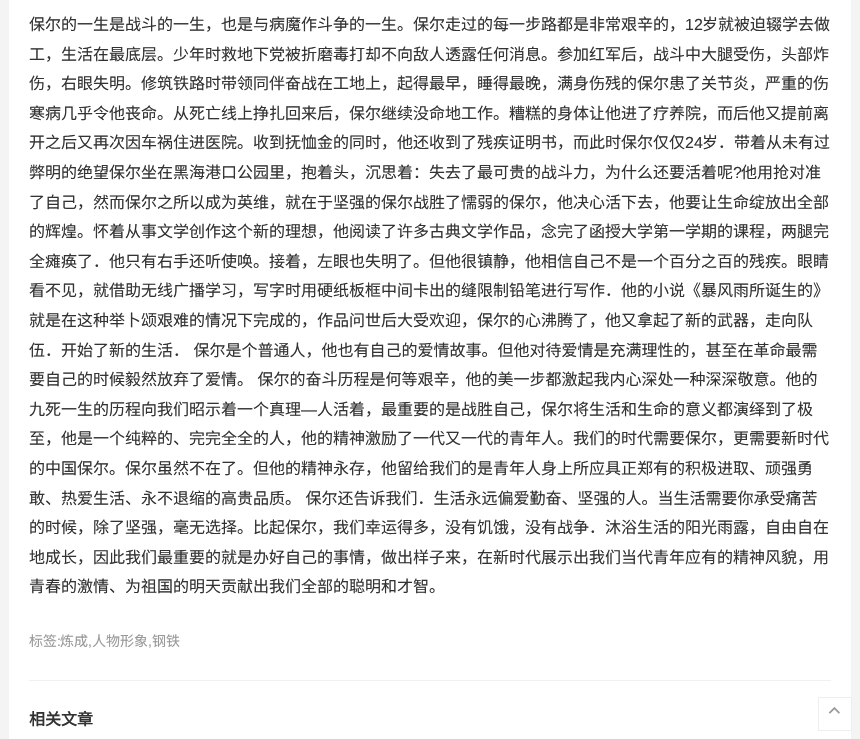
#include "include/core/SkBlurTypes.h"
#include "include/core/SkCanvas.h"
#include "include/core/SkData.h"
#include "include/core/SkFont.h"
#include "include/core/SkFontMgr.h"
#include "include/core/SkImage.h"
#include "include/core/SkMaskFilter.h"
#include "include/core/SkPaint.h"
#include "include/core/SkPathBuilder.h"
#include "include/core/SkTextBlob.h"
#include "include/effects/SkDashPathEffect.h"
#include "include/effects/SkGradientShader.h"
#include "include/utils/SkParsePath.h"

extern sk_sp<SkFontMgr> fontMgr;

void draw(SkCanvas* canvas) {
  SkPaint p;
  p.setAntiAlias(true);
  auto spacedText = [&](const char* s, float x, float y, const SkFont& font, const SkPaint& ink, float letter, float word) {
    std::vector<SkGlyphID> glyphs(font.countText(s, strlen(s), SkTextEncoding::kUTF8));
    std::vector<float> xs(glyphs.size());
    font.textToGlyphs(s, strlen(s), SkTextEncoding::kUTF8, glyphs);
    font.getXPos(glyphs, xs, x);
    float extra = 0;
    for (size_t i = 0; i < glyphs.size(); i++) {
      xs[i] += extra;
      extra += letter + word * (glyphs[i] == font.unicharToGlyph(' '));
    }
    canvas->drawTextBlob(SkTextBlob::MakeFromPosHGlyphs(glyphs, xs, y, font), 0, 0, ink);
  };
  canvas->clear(SkColorSetRGB(244, 244, 244));
  p.setColor(SK_ColorWHITE);
  canvas->drawRect(SkRect::MakeLTRB(9, 0, 851, 739), p);
  p.setColor(SkColorSetRGB(240, 240, 240));
  canvas->drawRect(SkRect::MakeLTRB(29, 680, 831, 681), p);
  p.setStyle(SkPaint::kStroke_Style);
  p.setStrokeWidth(1);
  p.setColor(SkColorSetRGB(238, 238, 238));
  canvas->drawRect(SkRect::MakeLTRB(818.5f, 697.5f, 851.5f, 730.5f), p);
  canvas->drawImageRect(SkImages::DeferredFromEncodedData(SkData::MakeFromFileName("images/1.png")), SkRect::MakeLTRB(828, 707, 840, 714), SkSamplingOptions());
  SkFont font1(fontMgr->matchFamilyStyle("Noto Sans CJK SC", SkFontStyle::Normal()), 16);
  font1.setSubpixel(true);
  p.setStyle(SkPaint::kFill_Style);
  p.setColor(SkColorSetRGB(51, 51, 51));
  canvas->drawString("保尔的一生是战斗的一生，也是与病魔作斗争的一生。保尔走过的每一步路都是非常艰辛的，", 29, 30, font1, p);
  SkFont font2(fontMgr->matchFamilyStyle("Liberation Sans", SkFontStyle::Normal()), 16);
  font2.setSubpixel(true);
  canvas->drawString("12", 685, 30, font2, p);
  canvas->drawString("岁就被迫辍学去做", 702, 30, font1, p);
  canvas->drawString("工，生活在最底层。少年时救地下党被折磨毒打却不向敌人透露任何消息。参加红军后，战斗中大腿受伤，头部炸", 29, 60, font1, p);
  canvas->drawString("伤，右眼失明。修筑铁路时带领同伴奋战在工地上，起得最早，睡得最晚，满身伤残的保尔患了关节炎，严重的伤", 29, 89, font1, p);
  canvas->drawString("寒病几乎令他丧命。从死亡线上挣扎回来后，保尔继续没命地工作。糟糕的身体让他进了疗养院，而后他又提前离", 29, 119, font1, p);
  canvas->drawString("开之后又再次因车祸住进医院。收到抚恤金的同时，他还收到了残疾证明书，而此时保尔仅仅", 29, 148, font1, p);
  canvas->drawString("24", 685, 148, font2, p);
  canvas->drawString("岁．带着从未有过", 702, 148, font1, p);
  canvas->drawString("弊明的绝望保尔坐在黑海港口公园里，抱着头，沉思着：失去了最可贵的战斗力，为什么还要活着呢", 29, 178, font1, p);
  canvas->drawString("?", 733, 178, font2, p);
  canvas->drawString("他用抢对准", 741, 178, font1, p);
  canvas->drawString("了自己，然而保尔之所以成为英维，就在于坚强的保尔战胜了懦弱的保尔，他决心活下去，他要让生命绽放出全部", 29, 208, font1, p);
  canvas->drawString("的辉煌。怀着从事文学创作这个新的理想，他阅读了许多古典文学作品，念完了函授大学第一学期的课程，两腿完", 29, 237, font1, p);
  canvas->drawString("全瘫痪了．他只有右手还听使唤。接着，左眼也失明了。但他很镇静，他相信自己不是一个百分之百的残疾。眼睛", 29, 267, font1, p);
  canvas->drawString("看不见，就借助无线广播学习，写字时用硬纸板框中间卡出的缝限制铅笔进行写作．他的小说《暴风雨所诞生的》", 29, 296, font1, p);
  canvas->drawString("就是在这种举卜颂艰难的情况下完成的，作品问世后大受欢迎，保尔的心沸腾了，他又拿起了新的武器，走向队", 29, 326, font1, p);
  spacedText("伍．开始了新的生活． 保尔是个普通人，他也有自己的爱情故事。但他对待爱情是充满理性的，甚至在革命最需", 29, 356, font1, p, 0, 1);
  spacedText("要自己的时候毅然放弃了爱情。 保尔的奋斗历程是何等艰辛，他的美一步都激起我内心深处一种深深敬意。他的", 29, 385, font1, p, 0, 1);
  canvas->drawString("九死一生的历程向我们昭示着一个真理", 29, 415, font1, p);
  canvas->drawString("—", 301, 415, font2, p);
  canvas->drawString("人活着，最重要的是战胜自己，保尔将生活和生命的意义都演绎到了极", 317, 415, font1, p);
  canvas->drawString("至，他是一个纯粹的、完完全全的人，他的精神激励了一代又一代的青年人。我们的时代需要保尔，更需要新时代", 29, 444, font1, p);
  canvas->drawString("的中国保尔。保尔虽然不在了。但他的精神永存，他留给我们的是青年人身上所应具正郑有的积极进取、顽强勇", 29, 474, font1, p);
  spacedText("敢、热爱生活、永不退缩的高贵品质。 保尔还告诉我们．生活永远偏爱勤奋、坚强的人。当生活需要你承受痛苦", 29, 504, font1, p, 0, 1);
  canvas->drawString("的时候，除了坚强，毫无选择。比起保尔，我们幸运得多，没有饥饿，没有战争．沐浴生活的阳光雨露，自由自在", 29, 533, font1, p);
  canvas->drawString("地成长，因此我们最重要的就是办好自己的事情，做出样子来，在新时代展示出我们当代青年应有的精神风貌，用", 29, 563, font1, p);
  canvas->drawString("青春的激情、为祖国的明天贡献出我们全部的聪明和才智。", 29, 592, font1, p);
  SkFont font3(fontMgr->matchFamilyStyle("Noto Sans CJK SC", SkFontStyle::Normal()), 14);
  font3.setSubpixel(true);
  p.setColor(SkColorSetRGB(153, 153, 153));
  canvas->drawString("标签", 29, 646, font3, p);
  SkFont font4(fontMgr->matchFamilyStyle("Liberation Sans", SkFontStyle::Normal()), 14);
  font4.setSubpixel(true);
  canvas->drawString(":", 57, 646, font4, p);
  canvas->drawString("炼成", 60, 646, font3, p);
  canvas->drawString(",", 88, 646, font4, p);
  canvas->drawString("人物形象", 92, 646, font3, p);
  canvas->drawString(",", 148, 646, font4, p);
  canvas->drawString("钢铁", 152, 646, font3, p);
  SkFont font5(fontMgr->matchFamilyStyle("Noto Sans CJK SC", SkFontStyle::Bold()), 16);
  font5.setSubpixel(true);
  p.setColor(SkColorSetRGB(51, 51, 51));
  canvas->drawString("相关文章", 29, 725, font5, p);
}
